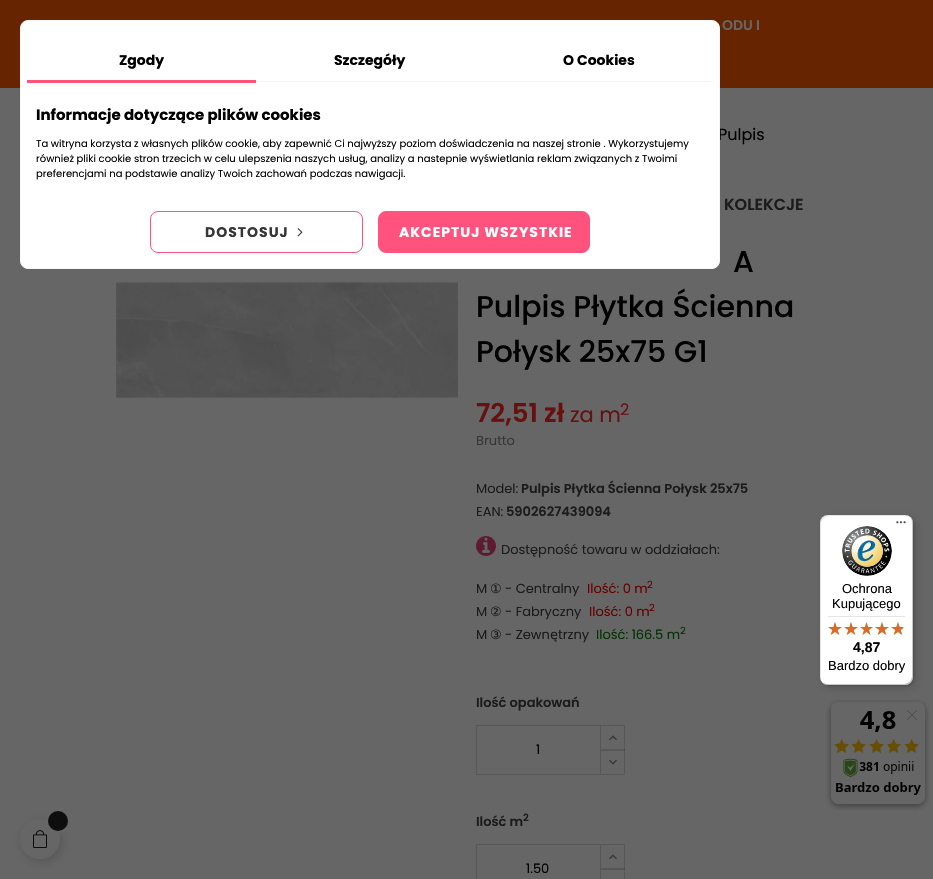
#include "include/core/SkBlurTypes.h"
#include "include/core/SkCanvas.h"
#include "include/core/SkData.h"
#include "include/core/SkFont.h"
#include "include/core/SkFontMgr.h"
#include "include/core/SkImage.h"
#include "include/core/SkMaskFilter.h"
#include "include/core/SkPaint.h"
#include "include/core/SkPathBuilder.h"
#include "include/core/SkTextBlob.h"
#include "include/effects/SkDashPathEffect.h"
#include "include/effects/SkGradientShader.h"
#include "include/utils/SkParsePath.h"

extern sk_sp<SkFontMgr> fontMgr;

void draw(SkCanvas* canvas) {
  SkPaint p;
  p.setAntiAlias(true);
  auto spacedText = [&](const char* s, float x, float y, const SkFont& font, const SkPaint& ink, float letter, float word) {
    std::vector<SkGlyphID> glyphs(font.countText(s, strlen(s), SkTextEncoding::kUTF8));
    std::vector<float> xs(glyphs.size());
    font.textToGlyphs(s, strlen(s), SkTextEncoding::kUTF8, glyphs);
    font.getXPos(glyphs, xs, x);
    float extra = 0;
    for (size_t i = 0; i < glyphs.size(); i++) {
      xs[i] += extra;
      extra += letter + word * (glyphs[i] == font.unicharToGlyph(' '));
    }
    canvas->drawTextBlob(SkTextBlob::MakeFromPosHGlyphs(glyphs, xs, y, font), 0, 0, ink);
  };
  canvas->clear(SkColorSetRGB(102, 102, 102));
  p.setColor(SkColorSetRGB(102, 36, 0));
  canvas->drawRect(SkRect::MakeLTRB(0, 0, 933, 88), p);
  canvas->drawImageRect(SkImages::DeferredFromEncodedData(SkData::MakeFromFileName("images/2.png")), SkRect::MakeLTRB(116, 281, 458, 399), SkSamplingOptions());
  canvas->drawImageRect(SkImages::DeferredFromEncodedData(SkData::MakeFromFileName("images/3.png")), SkRect::MakeLTRB(476, 536, 496, 556), SkSamplingOptions());
  p.setStyle(SkPaint::kStroke_Style);
  p.setStrokeWidth(1);
  p.setColor(SkColorSetRGB(87, 87, 87));
  canvas->drawRect(SkRect::MakeLTRB(600.5f, 725.5f, 624.5f, 750.5f), p);
  p.setColor(SkColorSetARGB(38, 0, 0, 0));
  canvas->drawRect(SkRect::MakeLTRB(600.5f, 749.5f, 624.5f, 774.5f), p);
  p.setColor(SkColorSetRGB(87, 87, 87));
  canvas->drawRect(SkRect::MakeLTRB(476.5f, 725.5f, 600.5f, 774.5f), p);
  canvas->drawImageRect(SkImages::DeferredFromEncodedData(SkData::MakeFromFileName("images/4.png")), SkRect::MakeLTRB(609, 735, 617, 741), SkSamplingOptions());
  canvas->drawImageRect(SkImages::DeferredFromEncodedData(SkData::MakeFromFileName("images/5.png")), SkRect::MakeLTRB(609, 759, 617, 765), SkSamplingOptions());
  canvas->drawRect(SkRect::MakeLTRB(600.5f, 844.5f, 624.5f, 869.5f), p);
  p.setColor(SkColorSetARGB(38, 0, 0, 0));
  canvas->drawRect(SkRect::MakeLTRB(600.5f, 868.5f, 624.5f, 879.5f), p);
  p.setColor(SkColorSetRGB(87, 87, 87));
  canvas->drawRect(SkRect::MakeLTRB(476.5f, 844.5f, 600.5f, 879.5f), p);
  canvas->drawImageRect(SkImages::DeferredFromEncodedData(SkData::MakeFromFileName("images/4.png")), SkRect::MakeLTRB(609, 854, 617, 860), SkSamplingOptions());
  canvas->drawImageRect(SkImages::DeferredFromEncodedData(SkData::MakeFromFileName("images/6.png")), SkRect::MakeLTRB(609, 878, 617, 879), SkSamplingOptions());
  canvas->drawImageRect(SkImages::DeferredFromEncodedData(SkData::MakeFromFileName("images/14.png")), SkRect::MakeLTRB(826, 699, 930, 811), SkSamplingOptions());
  p.setStyle(SkPaint::kFill_Style);
  p.setColor(SkColorSetARGB(38, 0, 0, 0));
  p.setMaskFilter(SkMaskFilter::MakeBlur(kNormal_SkBlurStyle, 4));
  canvas->drawRoundRect(SkRect::MakeLTRB(823, 518, 916, 688), 8, 8, p);
  p.setMaskFilter(nullptr);
  p.setMaskFilter(SkMaskFilter::MakeBlur(kNormal_SkBlurStyle, 1));
  canvas->drawRoundRect(SkRect::MakeLTRB(821, 516, 914, 686), 8, 8, p);
  p.setMaskFilter(nullptr);
  p.setColor(SK_ColorWHITE);
  canvas->drawRoundRect(SkRect::MakeLTRB(820, 515, 913, 685), 8, 8, p);
  p.setColor(SkColorSetARGB(26, 0, 0, 0));
  canvas->drawPath(SkPathBuilder().moveTo(829, 516).lineTo(906, 516).cubicTo(908, 516, 910, 517, 912, 519).cubicTo(910, 517, 908, 515, 905, 515).lineTo(828, 515).cubicTo(824, 515, 820, 519, 820, 523).lineTo(820, 677).cubicTo(820, 680, 822, 682, 824, 684).cubicTo(822, 682, 821, 680, 821, 678).lineTo(821, 524).cubicTo(821, 520, 825, 516, 829, 516).close().detach(), p);
  p.setColor(SkColorSetARGB(51, 0, 0, 0));
  canvas->drawPath(SkPathBuilder().moveTo(821, 681).cubicTo(823, 683, 825, 685, 828, 685).lineTo(905, 685).cubicTo(909, 685, 913, 681, 913, 677).lineTo(913, 523).cubicTo(913, 520, 911, 518, 909, 516).cubicTo(911, 518, 912, 520, 912, 522).lineTo(912, 676).cubicTo(912, 680, 908, 684, 904, 684).lineTo(827, 684).cubicTo(825, 684, 823, 683, 821, 681).close().detach(), p);
  p.setColor(SkColorSetARGB(51, 50, 50, 50));
  canvas->drawPath(SkPathBuilder().moveTo(822, 682).cubicTo(823, 684, 826, 685, 828, 685).lineTo(905, 685).cubicTo(909, 685, 913, 681, 913, 677).lineTo(913, 523).cubicTo(913, 521, 912, 518, 910, 517).cubicTo(911, 518, 912, 520, 912, 522).lineTo(912, 676).cubicTo(912, 681, 909, 684, 904, 684).lineTo(827, 684).cubicTo(825, 684, 823, 683, 822, 682).close().detach(), p);
  p.setColor(SkColorSetARGB(77, 255, 255, 255));
  canvas->drawPath(SkPathBuilder().moveTo(820, 676).lineTo(820, 677).cubicTo(820, 681, 824, 685, 828, 685).lineTo(905, 685).cubicTo(909, 685, 913, 681, 913, 677).lineTo(913, 523).cubicTo(913, 521, 912, 518, 910, 517).cubicTo(911, 518, 912, 520, 912, 522).lineTo(912, 676).cubicTo(912, 681, 909, 684, 904, 684).lineTo(828, 684).cubicTo(823, 684, 820, 681, 820, 676).close().detach(), p);
  canvas->drawImageRect(SkImages::DeferredFromEncodedData(SkData::MakeFromFileName("images/7.png")), SkRect::MakeLTRB(896, 521, 906, 524), SkSamplingOptions());
  canvas->drawImageRect(SkImages::DeferredFromEncodedData(SkData::MakeFromFileName("images/8.png")), SkRect::MakeLTRB(842, 526, 892, 576), SkSamplingOptions());
  p.setColor(SkColorSetRGB(229, 229, 229));
  canvas->drawRect(SkRect::MakeLTRB(828, 616, 905, 617), p);
  canvas->drawImageRect(SkImages::DeferredFromEncodedData(SkData::MakeFromFileName("images/9.png")), SkRect::MakeLTRB(828, 622, 842, 635), SkSamplingOptions());
  canvas->drawImageRect(SkImages::DeferredFromEncodedData(SkData::MakeFromFileName("images/9.png")), SkRect::MakeLTRB(844, 622, 858, 635), SkSamplingOptions());
  canvas->drawImageRect(SkImages::DeferredFromEncodedData(SkData::MakeFromFileName("images/10.png")), SkRect::MakeLTRB(860, 622, 873, 635), SkSamplingOptions());
  canvas->drawImageRect(SkImages::DeferredFromEncodedData(SkData::MakeFromFileName("images/9.png")), SkRect::MakeLTRB(875, 622, 889, 635), SkSamplingOptions());
  canvas->drawImageRect(SkImages::DeferredFromEncodedData(SkData::MakeFromFileName("images/9.png")), SkRect::MakeLTRB(891, 622, 905, 635), SkSamplingOptions());
  canvas->drawImageRect(SkImages::DeferredFromEncodedData(SkData::MakeFromFileName("images/11.png")), SkRect::MakeLTRB(828, 622, 842, 635), SkSamplingOptions());
  canvas->drawImageRect(SkImages::DeferredFromEncodedData(SkData::MakeFromFileName("images/11.png")), SkRect::MakeLTRB(844, 622, 858, 635), SkSamplingOptions());
  canvas->drawImageRect(SkImages::DeferredFromEncodedData(SkData::MakeFromFileName("images/12.png")), SkRect::MakeLTRB(860, 622, 873, 635), SkSamplingOptions());
  canvas->drawImageRect(SkImages::DeferredFromEncodedData(SkData::MakeFromFileName("images/11.png")), SkRect::MakeLTRB(875, 622, 889, 635), SkSamplingOptions());
  canvas->drawImageRect(SkImages::DeferredFromEncodedData(SkData::MakeFromFileName("images/13.png")), SkRect::MakeLTRB(891, 622, 903, 635), SkSamplingOptions());
  p.setColor(SkColorSetARGB(38, 0, 0, 0));
  p.setMaskFilter(SkMaskFilter::MakeBlur(kNormal_SkBlurStyle, 5));
  canvas->drawRoundRect(SkRect::MakeLTRB(22, 822, 62, 862), 20, 20, p);
  p.setMaskFilter(nullptr);
  p.setColor(SkColorSetRGB(102, 102, 102));
  canvas->drawCircle(40, 839, 20, p);
  canvas->drawImageRect(SkImages::DeferredFromEncodedData(SkData::MakeFromFileName("images/15.png")), SkRect::MakeLTRB(33, 830, 47, 848), SkSamplingOptions());
  p.setStyle(SkPaint::kStroke_Style);
  p.setStrokeWidth(2);
  canvas->drawCircle(58, 821, 11, p);
  p.setStyle(SkPaint::kFill_Style);
  p.setColor(SkColorSetRGB(14, 14, 14));
  canvas->drawCircle(58, 821, 10, p);
  SkFont font1(fontMgr->matchFamilyStyle("Poppins", SkFontStyle(600, SkFontStyle::kNormal_Width, SkFontStyle::kUpright_Slant)), 14);
  font1.setSubpixel(true);
  p.setColor(SkColorSetRGB(102, 102, 102));
  canvas->drawString("ODU I", 722, 30, font1, p);
  SkFont font2(fontMgr->matchFamilyStyle("Poppins", SkFontStyle::Normal()), 16);
  font2.setSubpixel(true);
  p.setColor(SK_ColorBLACK);
  canvas->drawString("Pulpis", 718, 140, font2, p);
  p.setColor(SK_ColorWHITE);
  canvas->drawRoundRect(SkRect::MakeLTRB(20.5f, 20.5f, 719.5f, 268.5f), 7.5f, 7.5f, p);
  p.setStyle(SkPaint::kStroke_Style);
  p.setStrokeWidth(1);
  p.setColor(SkColorSetRGB(246, 246, 246));
  canvas->drawRoundRect(SkRect::MakeLTRB(20.5f, 20.5f, 719.5f, 268.5f), 7.5f, 7.5f, p);
  SkFont font3(fontMgr->matchFamilyStyle("Poppins", SkFontStyle::Bold()), 14);
  font3.setSubpixel(true);
  p.setStyle(SkPaint::kFill_Style);
  p.setColor(SK_ColorBLACK);
  canvas->drawString("O Cookies", 563, 65, font3, p);
  canvas->drawString("Szczegóły", 334, 65, font3, p);
  canvas->drawString("Zgody", 119, 65, font3, p);
  p.setColor(SkColorSetRGB(255, 82, 124));
  canvas->drawRect(SkRect::MakeLTRB(27, 80, 256, 83), p);
  p.setColor(SkColorSetRGB(246, 246, 246));
  canvas->drawRect(SkRect::MakeLTRB(256, 81, 713, 82), p);
  p.setColor(SkColorSetRGB(255, 82, 124));
  canvas->drawRoundRect(SkRect::MakeLTRB(378.5f, 211.5f, 589.5f, 252.5f), 7.5f, 7.5f, p);
  p.setStyle(SkPaint::kStroke_Style);
  canvas->drawRoundRect(SkRect::MakeLTRB(378.5f, 211.5f, 589.5f, 252.5f), 7.5f, 7.5f, p);
  p.setStyle(SkPaint::kFill_Style);
  p.setColor(SK_ColorWHITE);
  spacedText("AKCEPTUJ WSZYSTKIE", 399, 237, font3, p, 1, 0);
  p.setStyle(SkPaint::kStroke_Style);
  p.setColor(SkColorSetRGB(255, 82, 124));
  canvas->drawRoundRect(SkRect::MakeLTRB(150.5f, 211.5f, 362.5f, 252.5f), 7.5f, 7.5f, p);
  canvas->drawImageRect(SkImages::DeferredFromEncodedData(SkData::MakeFromFileName("images/1.png")), SkRect::MakeLTRB(297, 228, 303, 237), SkSamplingOptions());
  p.setStyle(SkPaint::kFill_Style);
  p.setColor(SkColorSetRGB(54, 54, 54));
  spacedText("DOSTOSUJ", 205, 237, font3, p, 1, 0);
  SkFont font4(fontMgr->matchFamilyStyle("Poppins", SkFontStyle::Normal()), 10);
  font4.setSubpixel(true);
  p.setColor(SK_ColorBLACK);
  canvas->drawString("preferencjami na podstawie analizy Twoich zachowań podczas nawigacji.", 36, 177, font4, p);
  canvas->drawString("również pliki cookie stron trzecich w celu ulepszenia naszych usług, analizy a nastepnie wyświetlania reklam związanych z Twoimi", 36, 162, font4, p);
  canvas->drawString("Ta witryna korzysta z własnych plików cookie, aby zapewnić Ci najwyższy poziom doświadczenia na naszej stronie . Wykorzystujemy", 36, 147, font4, p);
  SkFont font5(fontMgr->matchFamilyStyle("Poppins", SkFontStyle::Bold()), 15);
  font5.setSubpixel(true);
  canvas->drawString("Informacje dotyczące plików cookies", 36, 120, font5, p);
  SkFont font6(fontMgr->matchFamilyStyle("Poppins", SkFontStyle(600, SkFontStyle::kNormal_Width, SkFontStyle::kUpright_Slant)), 16);
  font6.setSubpixel(true);
  p.setColor(SkColorSetRGB(27, 27, 27));
  canvas->drawString("KOLEKCJE", 724, 210, font6, p);
  SkFont font7(fontMgr->matchFamilyStyle("Poppins", SkFontStyle(500, SkFontStyle::kNormal_Width, SkFontStyle::kUpright_Slant)), 30);
  font7.setSubpixel(true);
  p.setColor(SK_ColorBLACK);
  canvas->drawString("A", 733, 272, font7, p);
  canvas->drawString("Pulpis Płytka Ścienna", 476, 317, font7, p);
  canvas->drawString("Połysk 25x75 G1", 476, 362, font7, p);
  SkFont font8(fontMgr->matchFamilyStyle("Poppins", SkFontStyle(600, SkFontStyle::kNormal_Width, SkFontStyle::kUpright_Slant)), 26);
  font8.setSubpixel(true);
  p.setColor(SkColorSetRGB(102, 16, 16));
  canvas->drawString("72,51 zł", 476, 422, font8, p);
  SkFont font9(fontMgr->matchFamilyStyle("Poppins", SkFontStyle::Normal()), 21);
  font9.setSubpixel(true);
  canvas->drawString("za m", 570, 422, font9, p);
  canvas->drawString("2", 620, 415, font2, p);
  SkFont font10(fontMgr->matchFamilyStyle("Poppins", SkFontStyle::Normal()), 13);
  font10.setSubpixel(true);
  p.setColor(SkColorSetRGB(54, 54, 54));
  canvas->drawString("Brutto", 476, 445, font10, p);
  p.setColor(SkColorSetRGB(27, 27, 27));
  canvas->drawString("Model:", 476, 493, font10, p);
  SkFont font11(fontMgr->matchFamilyStyle("Poppins", SkFontStyle(600, SkFontStyle::kNormal_Width, SkFontStyle::kUpright_Slant)), 13);
  font11.setSubpixel(true);
  canvas->drawString("Pulpis Płytka Ścienna Połysk 25x75", 521, 493, font11, p);
  canvas->drawString("EAN:", 476, 516, font10, p);
  canvas->drawString("5902627439094", 506, 516, font11, p);
  canvas->drawString("Dostępność towaru w oddziałach:", 501, 554, font10, p);
  canvas->drawString("M", 476, 593, font10, p);
  SkFont font12(fontMgr->matchFamilyStyle("DejaVu Sans", SkFontStyle::Normal()), 13);
  font12.setSubpixel(true);
  canvas->drawString("①", 490, 593, font12, p);
  canvas->drawString("- Centralny", 505, 593, font10, p);
  p.setColor(SkColorSetRGB(102, 0, 0));
  canvas->drawString("Ilość: 0 m", 587, 593, font10, p);
  canvas->drawString("2", 647, 588, font4, p);
  p.setColor(SkColorSetRGB(27, 27, 27));
  canvas->drawString("M", 476, 616, font10, p);
  canvas->drawString("②", 490, 616, font12, p);
  canvas->drawString("- Fabryczny", 505, 616, font10, p);
  p.setColor(SkColorSetRGB(102, 0, 0));
  canvas->drawString("Ilość: 0 m", 589, 616, font10, p);
  canvas->drawString("2", 649, 611, font4, p);
  p.setColor(SkColorSetRGB(27, 27, 27));
  canvas->drawString("M", 476, 639, font10, p);
  canvas->drawString("③", 490, 639, font12, p);
  canvas->drawString("- Zewn", 505, 639, font10, p);
  canvas->drawString("ę", 550, 639, font12, p);
  canvas->drawString("trzny", 558, 639, font10, p);
  p.setColor(SkColorSetRGB(0, 51, 0));
  canvas->drawString("Ilość: 166.5 m", 596, 639, font10, p);
  canvas->drawString("2", 680, 634, font4, p);
  p.setColor(SkColorSetRGB(27, 27, 27));
  canvas->drawString("Ilość opakowań", 476, 707, font11, p);
  p.setColor(SK_ColorBLACK);
  canvas->drawString("1", 536, 754, font10, p);
  p.setColor(SkColorSetRGB(27, 27, 27));
  canvas->drawString("Ilość m", 476, 826, font11, p);
  SkFont font13(fontMgr->matchFamilyStyle("Poppins", SkFontStyle(600, SkFontStyle::kNormal_Width, SkFontStyle::kUpright_Slant)), 10);
  font13.setSubpixel(true);
  canvas->drawString("2", 523, 821, font13, p);
  p.setColor(SK_ColorBLACK);
  canvas->drawString("1.50", 526, 873, font10, p);
  SkFont font14(fontMgr->matchFamilyStyle("Liberation Sans", SkFontStyle::Normal()), 13);
  font14.setSubpixel(true);
  canvas->drawString("Ochrona", 842, 593, font14, p);
  canvas->drawString("Kupującego", 832, 608, font14, p);
  SkFont font15(fontMgr->matchFamilyStyle("Liberation Sans", SkFontStyle::Bold()), 14);
  font15.setSubpixel(true);
  canvas->drawString("4,87", 853, 652, font15, p);
  canvas->drawString("Bardzo dobry", 828, 670, font14, p);
}
